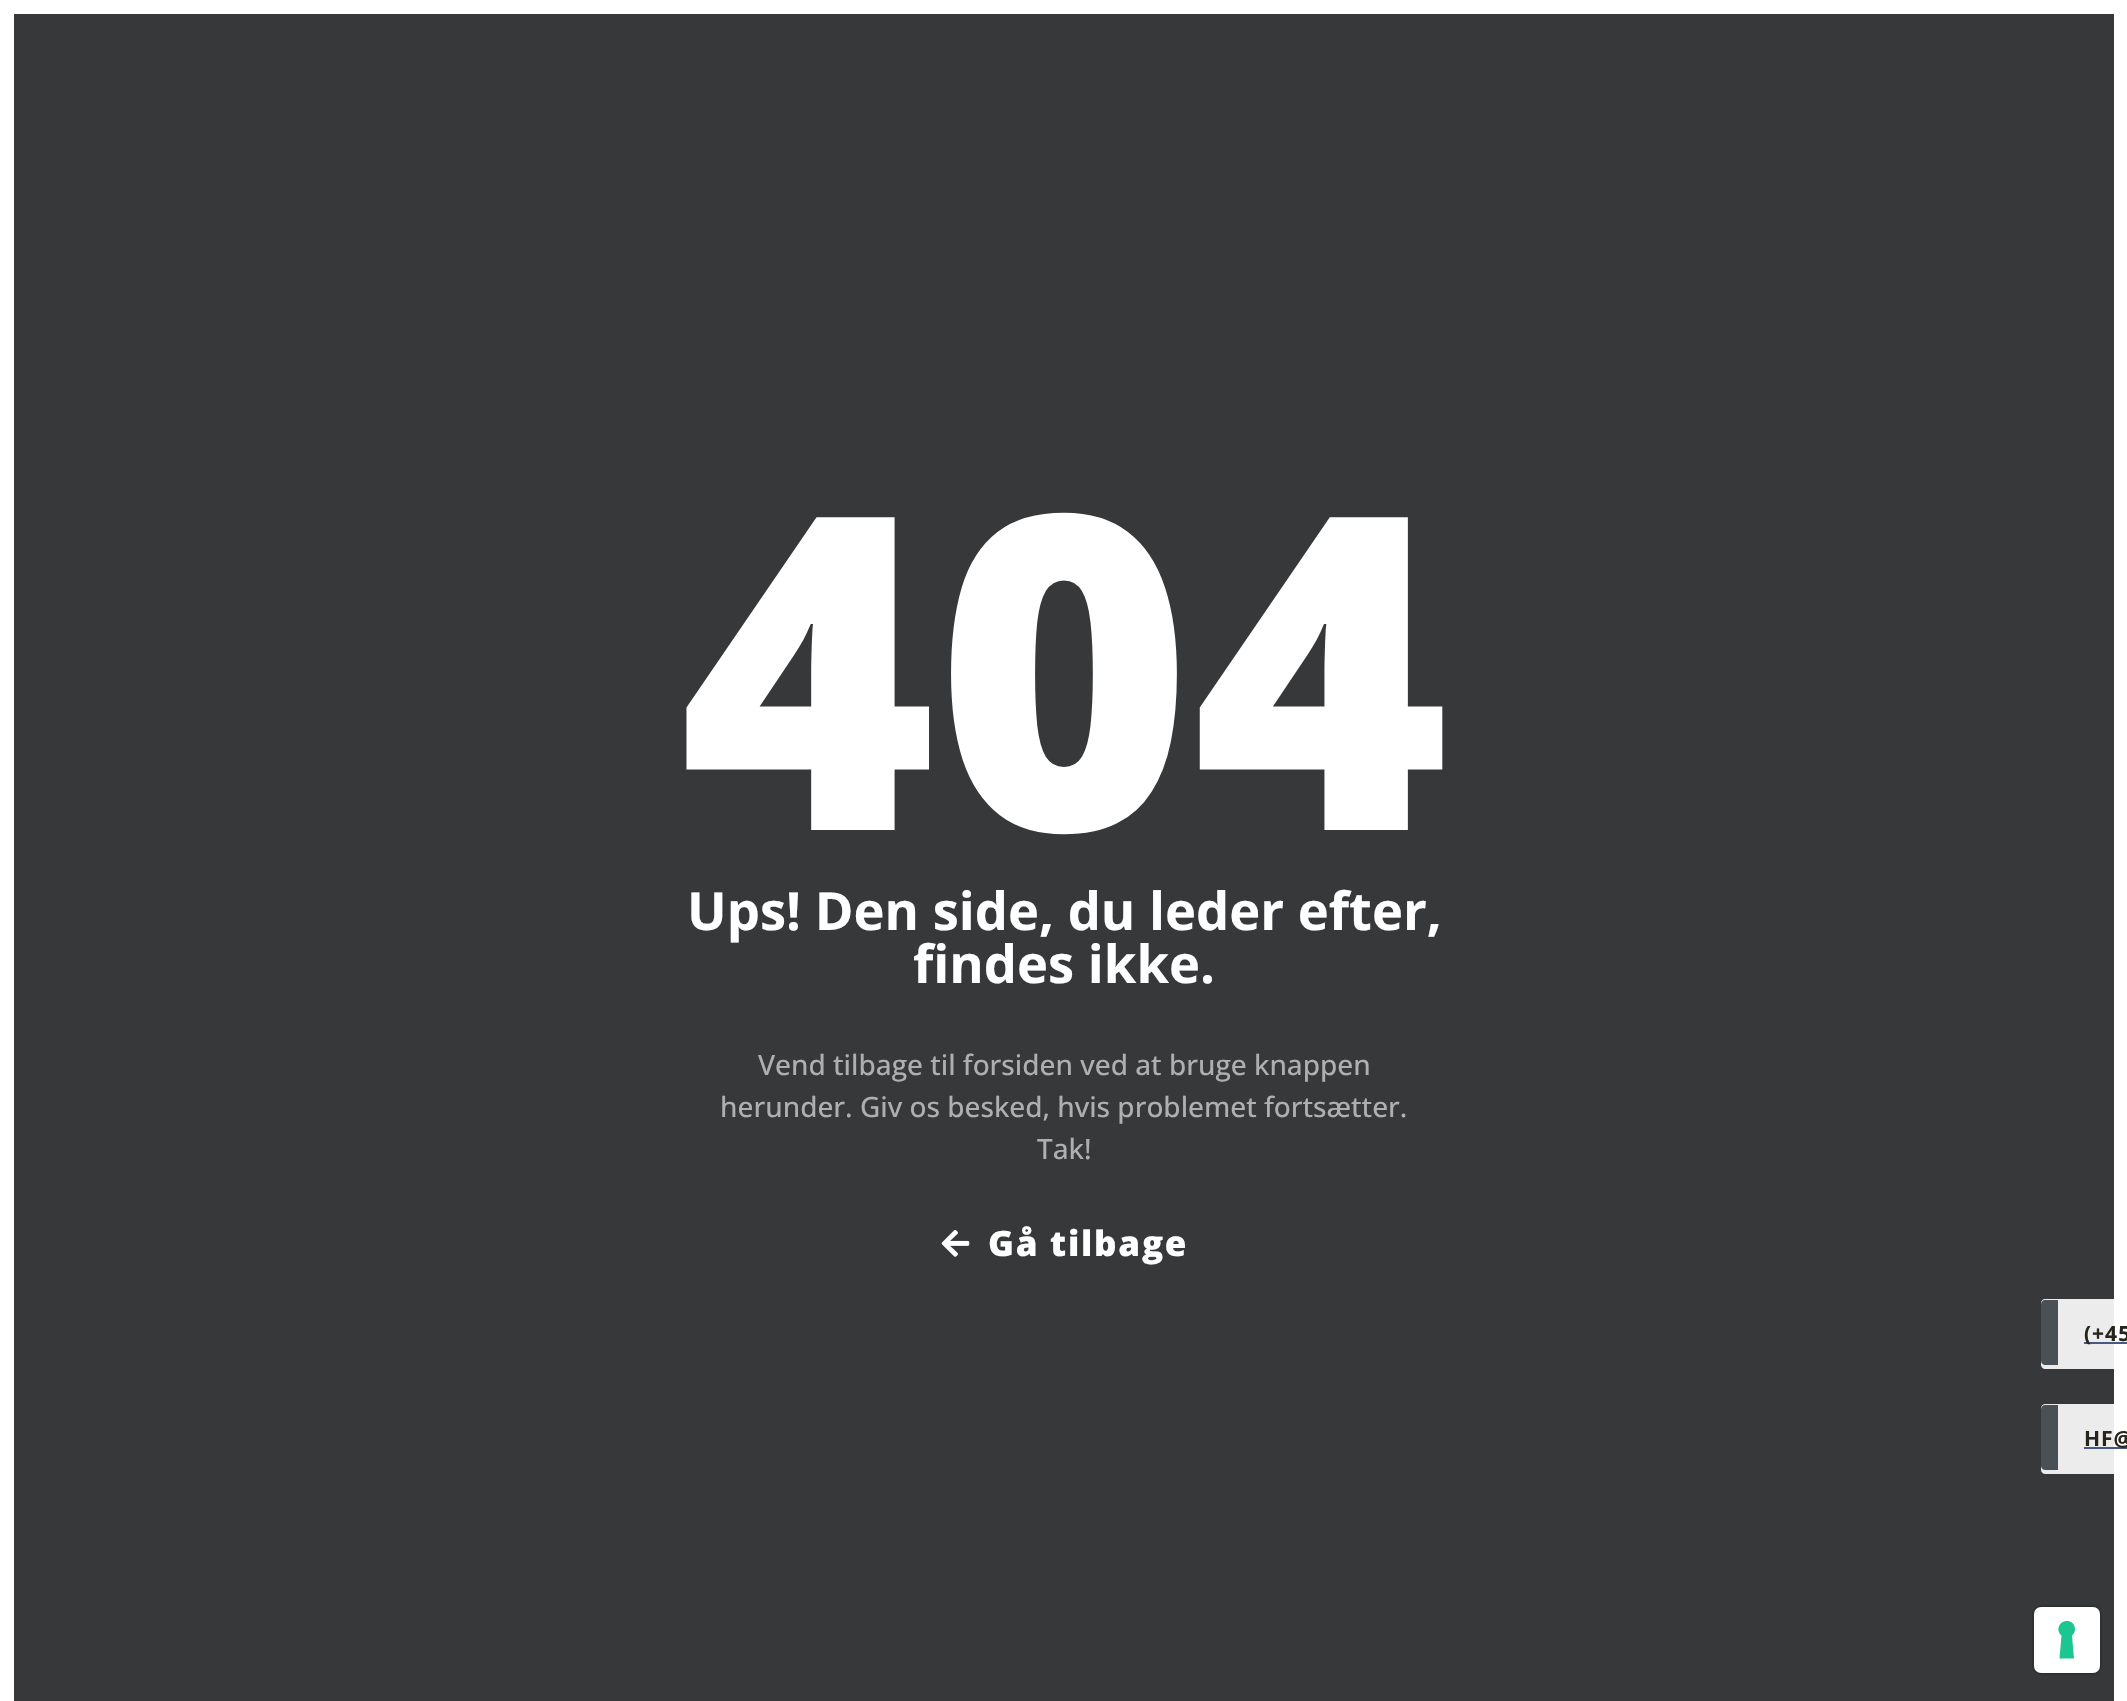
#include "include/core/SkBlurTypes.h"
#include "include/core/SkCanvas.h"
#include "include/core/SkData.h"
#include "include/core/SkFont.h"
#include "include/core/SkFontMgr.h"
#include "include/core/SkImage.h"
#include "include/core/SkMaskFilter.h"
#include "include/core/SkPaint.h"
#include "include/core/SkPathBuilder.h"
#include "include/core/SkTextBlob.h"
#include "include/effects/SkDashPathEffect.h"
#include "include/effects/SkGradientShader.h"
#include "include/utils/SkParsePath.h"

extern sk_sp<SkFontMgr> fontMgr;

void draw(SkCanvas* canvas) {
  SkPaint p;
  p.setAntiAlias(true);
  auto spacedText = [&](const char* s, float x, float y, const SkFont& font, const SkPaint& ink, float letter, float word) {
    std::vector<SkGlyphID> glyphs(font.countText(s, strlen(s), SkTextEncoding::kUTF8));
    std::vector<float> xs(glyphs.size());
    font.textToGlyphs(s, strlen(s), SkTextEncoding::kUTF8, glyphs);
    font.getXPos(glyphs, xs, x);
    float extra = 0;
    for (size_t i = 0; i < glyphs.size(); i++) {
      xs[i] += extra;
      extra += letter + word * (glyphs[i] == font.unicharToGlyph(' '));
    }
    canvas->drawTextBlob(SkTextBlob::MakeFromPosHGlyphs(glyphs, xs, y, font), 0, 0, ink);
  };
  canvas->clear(SK_ColorWHITE);
  p.setColor(SkColorSetRGB(54, 56, 58));
  canvas->drawRect(SkRect::MakeLTRB(14, 14, 2114, 1701), p);
  canvas->drawImageRect(SkImages::DeferredFromEncodedData(SkData::MakeFromFileName("images/1.png")), SkRect::MakeLTRB(941, 1230, 970, 1257), SkSamplingOptions());
  p.setColor(SkColorSetARGB(230, 255, 255, 255));
  canvas->drawPath(SkPathBuilder().moveTo(2045, 1299).lineTo(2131, 1299).lineTo(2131, 1369).lineTo(2045, 1369).cubicTo(2043, 1369, 2041, 1367, 2041, 1365).lineTo(2041, 1303).cubicTo(2041, 1301, 2043, 1299, 2045, 1299).close().detach(), p);
  p.setColor(SkColorSetRGB(73, 81, 87));
  canvas->drawPath(SkPathBuilder().moveTo(2045, 1300).lineTo(2058, 1300).lineTo(2058, 1365).lineTo(2045, 1365).cubicTo(2043, 1365, 2041, 1363, 2041, 1361).lineTo(2041, 1304).cubicTo(2041, 1302, 2043, 1300, 2045, 1300).close().detach(), p);
  p.setColor(SkColorSetRGB(71, 89, 131));
  canvas->drawRect(SkRect::MakeLTRB(2084, 1342, 2127, 1344), p);
  p.setColor(SkColorSetARGB(230, 255, 255, 255));
  canvas->drawPath(SkPathBuilder().moveTo(2045, 1404).lineTo(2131, 1404).lineTo(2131, 1474).lineTo(2045, 1474).cubicTo(2043, 1474, 2041, 1472, 2041, 1470).lineTo(2041, 1408).cubicTo(2041, 1406, 2043, 1404, 2045, 1404).close().detach(), p);
  p.setColor(SkColorSetRGB(73, 81, 87));
  canvas->drawPath(SkPathBuilder().moveTo(2045, 1405).lineTo(2058, 1405).lineTo(2058, 1470).lineTo(2045, 1470).cubicTo(2043, 1470, 2041, 1468, 2041, 1466).lineTo(2041, 1409).cubicTo(2041, 1407, 2043, 1405, 2045, 1405).close().detach(), p);
  p.setColor(SkColorSetRGB(71, 89, 131));
  canvas->drawRect(SkRect::MakeLTRB(2084, 1447, 2127, 1449), p);
  p.setStyle(SkPaint::kStroke_Style);
  p.setStrokeWidth(2);
  p.setColor(SkColorSetRGB(46, 48, 49));
  canvas->drawRoundRect(SkRect::MakeLTRB(2033, 1606, 2101, 1674), 8, 8, p);
  p.setStyle(SkPaint::kFill_Style);
  p.setColor(SK_ColorWHITE);
  canvas->drawRoundRect(SkRect::MakeLTRB(2034, 1607, 2100, 1673), 7, 7, p);
  p.setColor(SkColorSetRGB(28, 198, 145));
  canvas->drawPath(SkPathBuilder(SkPathFillType::kEvenOdd).moveTo(2067, 1621).cubicTo(2074.5f, 1621, 2078, 1630.5f, 2072, 1635.5f).lineTo(2074, 1658.5f).lineTo(2059.5f, 1658.5f).lineTo(2061.5f, 1635.5f).cubicTo(2055.5f, 1630.5f, 2059, 1621, 2067, 1621).close().detach(), p);
  SkFont font1(fontMgr->matchFamilyStyle("Open Sans", SkFontStyle(800, SkFontStyle::kNormal_Width, SkFontStyle::kUpright_Slant)), 438);
  font1.setSubpixel(true);
  p.setColor(SK_ColorWHITE);
  canvas->drawString("404", 679, 830, font1, p);
  SkFont font2(fontMgr->matchFamilyStyle("Open Sans", SkFontStyle::Bold()), 52.5f);
  font2.setSubpixel(true);
  canvas->drawString("Ups! Den side, du leder efter,", 687, 930, font2, p);
  canvas->drawString("findes ikke.", 913, 983, font2, p);
  SkFont font3(fontMgr->matchFamilyStyle("Open Sans", SkFontStyle(500, SkFontStyle::kNormal_Width, SkFontStyle::kUpright_Slant)), 28);
  font3.setSubpixel(true);
  p.setColor(SkColorSetRGB(175, 175, 176));
  canvas->drawString("Vend tilbage til forsiden ved at bruge knappen", 758, 1075, font3, p);
  canvas->drawString("herunder. Giv os besked, hvis problemet fortsætter.", 720, 1117, font3, p);
  canvas->drawString("Tak!", 1037, 1159, font3, p);
  SkFont font4(fontMgr->matchFamilyStyle("Open Sans", SkFontStyle(800, SkFontStyle::kNormal_Width, SkFontStyle::kUpright_Slant)), 35);
  font4.setSubpixel(true);
  p.setColor(SK_ColorWHITE);
  spacedText("Gå tilbage", 988, 1256, font4, p, 1.75f, 0);
  SkFont font5(fontMgr->matchFamilyStyle("Open Sans", SkFontStyle::Bold()), 21);
  font5.setSubpixel(true);
  p.setColor(SkColorSetRGB(39, 36, 28));
  spacedText("(+45", 2084, 1341, font5, p, 1, 0);
  spacedText("HF@", 2084, 1446, font5, p, 1, 0);
}
